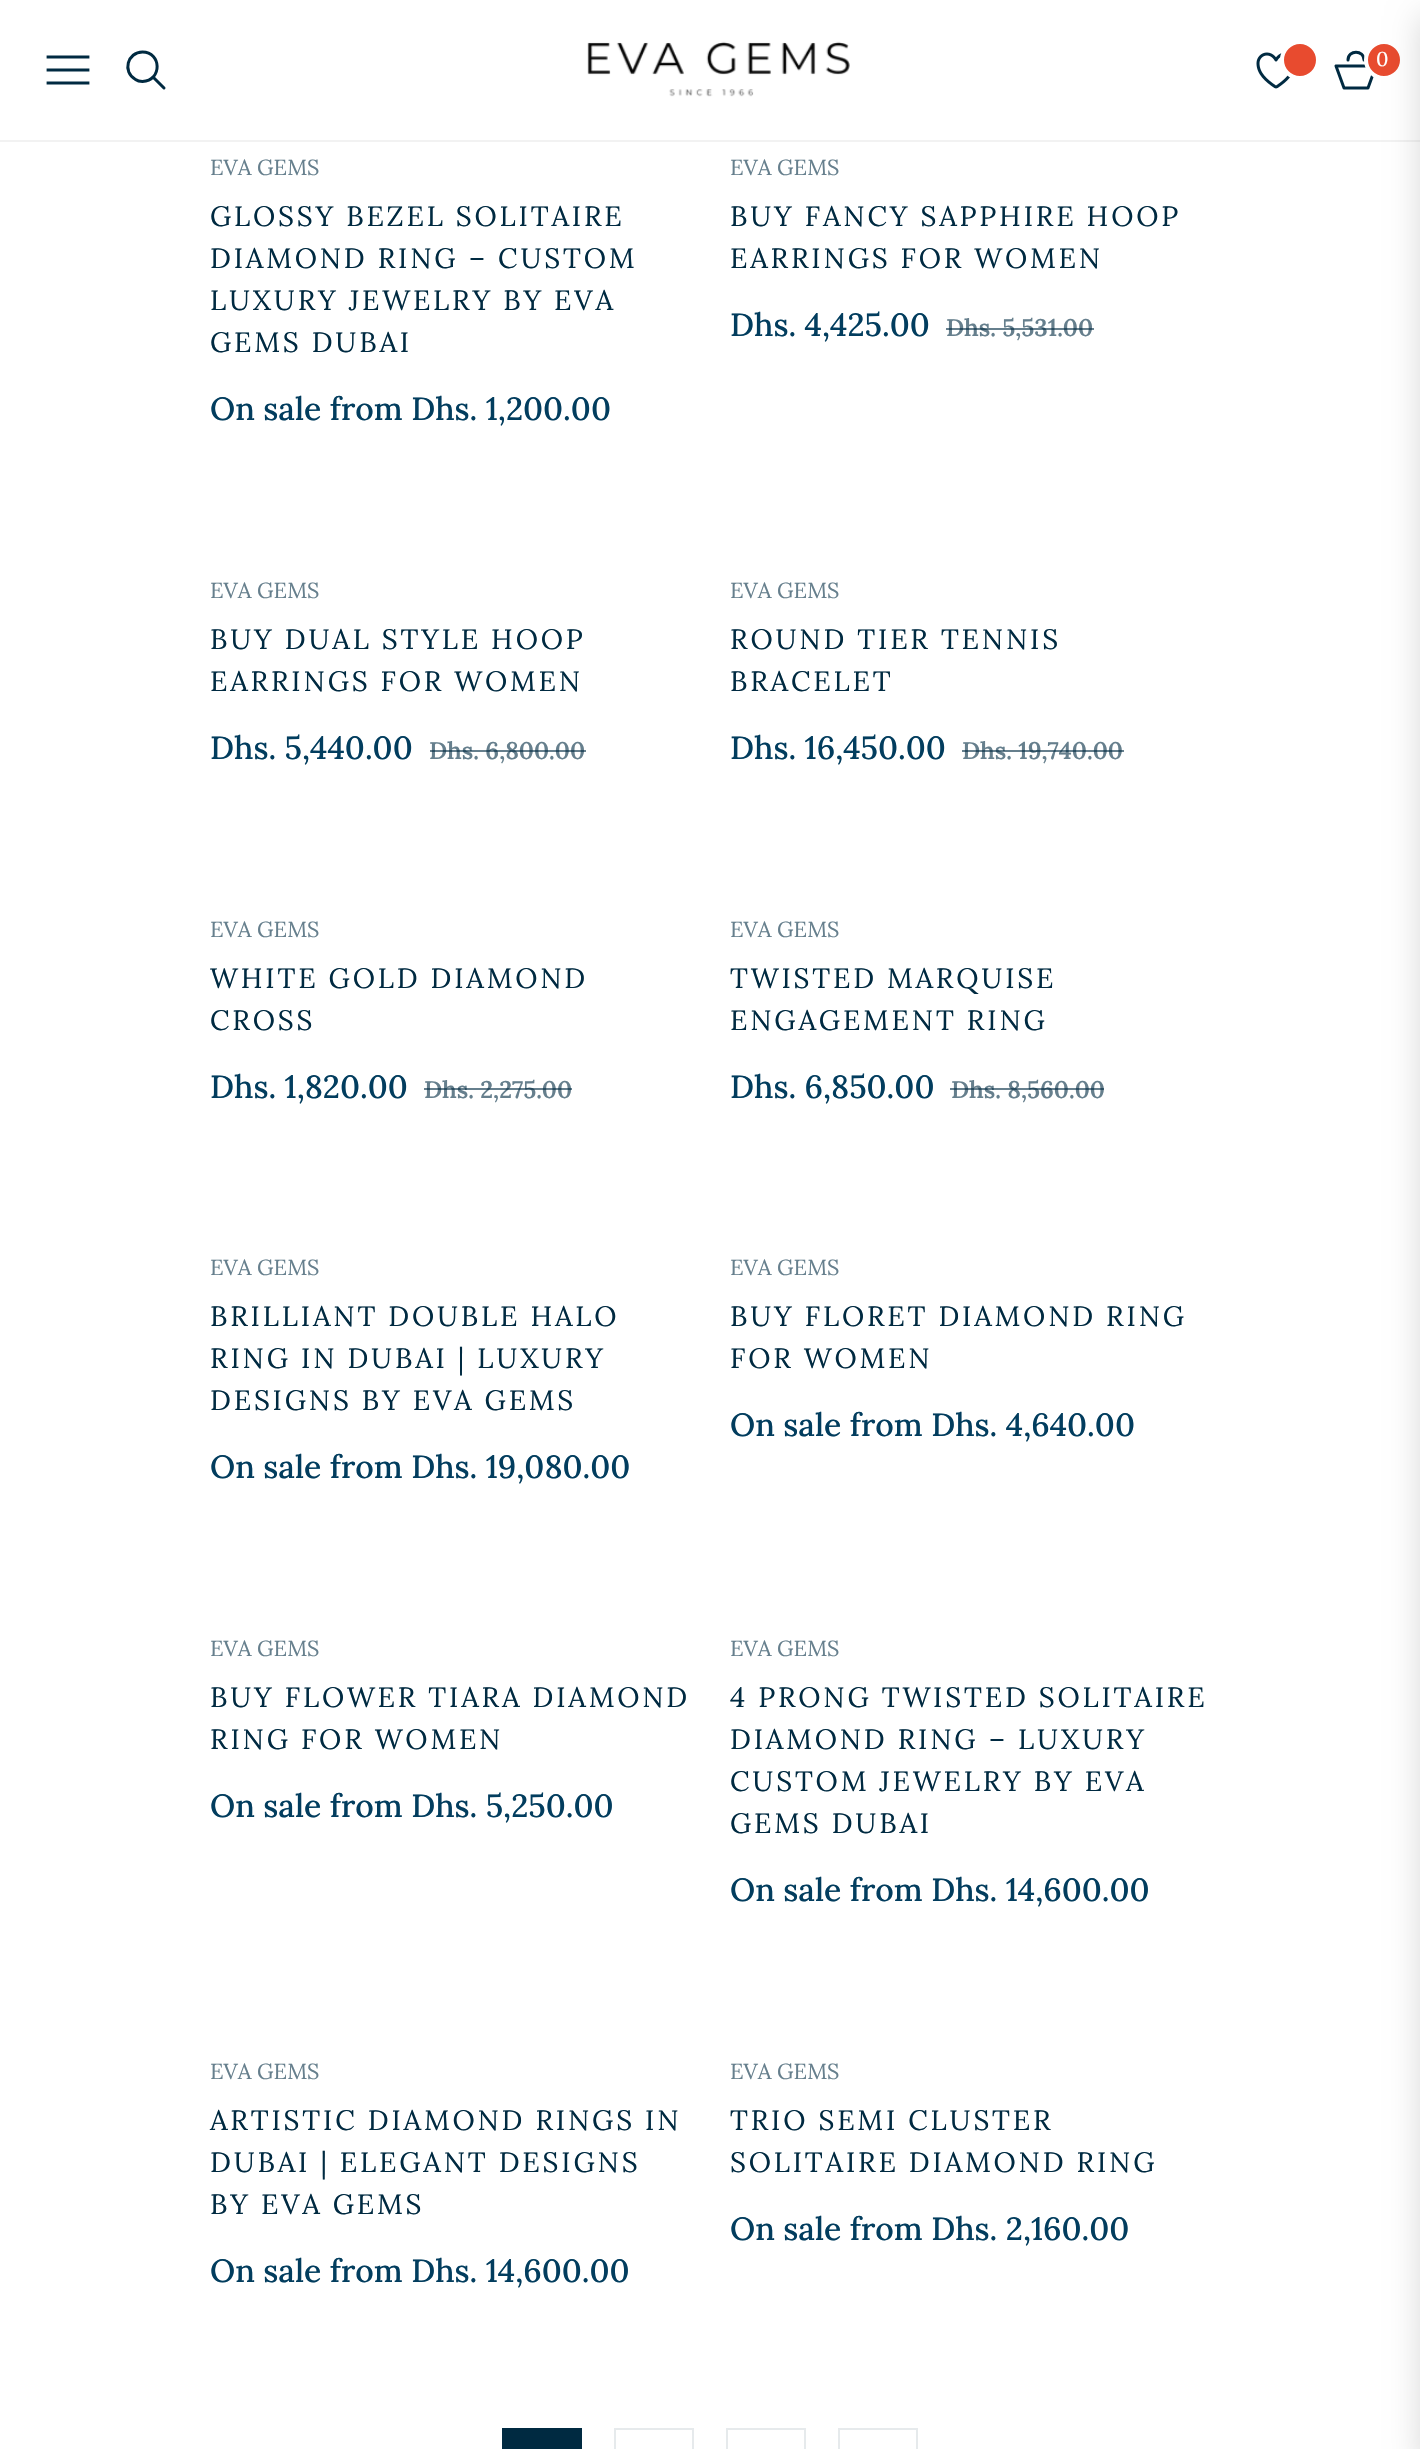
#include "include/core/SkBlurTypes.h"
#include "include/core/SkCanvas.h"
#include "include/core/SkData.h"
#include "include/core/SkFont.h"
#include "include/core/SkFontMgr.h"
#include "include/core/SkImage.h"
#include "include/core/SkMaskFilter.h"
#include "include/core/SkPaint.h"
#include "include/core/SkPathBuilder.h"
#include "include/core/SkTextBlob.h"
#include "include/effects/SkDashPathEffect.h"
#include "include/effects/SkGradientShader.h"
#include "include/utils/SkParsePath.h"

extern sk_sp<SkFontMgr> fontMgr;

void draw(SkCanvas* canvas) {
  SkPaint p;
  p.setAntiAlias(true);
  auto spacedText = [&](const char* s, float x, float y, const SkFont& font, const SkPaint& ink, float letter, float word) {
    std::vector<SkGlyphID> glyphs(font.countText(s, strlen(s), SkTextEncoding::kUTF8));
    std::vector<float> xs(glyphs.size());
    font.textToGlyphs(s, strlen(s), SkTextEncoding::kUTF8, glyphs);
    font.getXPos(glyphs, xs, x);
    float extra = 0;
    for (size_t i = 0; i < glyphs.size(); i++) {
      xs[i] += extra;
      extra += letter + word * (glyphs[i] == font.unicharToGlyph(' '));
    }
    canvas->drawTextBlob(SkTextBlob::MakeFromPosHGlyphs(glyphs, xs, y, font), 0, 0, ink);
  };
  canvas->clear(SK_ColorWHITE);
  p.setStyle(SkPaint::kStroke_Style);
  p.setStrokeWidth(2);
  p.setColor(SkColorSetRGB(242, 242, 242));
  canvas->drawRect(SkRect::MakeLTRB(-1, -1, 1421, 141), p);
  p.setStrokeWidth(2.8f);
  p.setStrokeCap(SkPaint::kSquare_Cap);
  p.setColor(SkColorSetRGB(0, 42, 65));
  canvas->drawPath(SkPathBuilder().moveTo(48, 83).lineTo(88, 83).moveTo(48, 70).lineTo(88, 70).moveTo(48, 57).lineTo(88, 57).detach(), p);
  p.setStrokeWidth(3);
  p.setStrokeCap(SkPaint::kButt_Cap);
  canvas->drawPath(SkPathBuilder().moveTo(142.5f, 52).cubicTo(127.5f, 52, 122, 72, 135.5f, 79.5f).cubicTo(137.5f, 81, 140, 81.5f, 142.5f, 81.5f).cubicTo(162.5f, 80.5f, 161.5f, 52, 142.5f, 52).close().detach(), p);
  p.setStrokeCap(SkPaint::kRound_Cap);
  canvas->drawPath(SkPathBuilder().moveTo(153.5f, 77.5f).lineTo(164, 88).detach(), p);
  canvas->drawImageRect(SkImages::DeferredFromEncodedData(SkData::MakeFromFileName("images/1.png")), SkRect::MakeLTRB(587, 41, 850, 97), SkSamplingOptions());
  canvas->drawImageRect(SkImages::DeferredFromEncodedData(SkData::MakeFromFileName("images/2.png")), SkRect::MakeLTRB(1256, 52, 1291, 89), SkSamplingOptions());
  p.setStyle(SkPaint::kFill_Style);
  p.setColor(SkColorSetRGB(232, 75, 47));
  canvas->drawCircle(1300, 60, 18, p);
  p.setStyle(SkPaint::kStroke_Style);
  p.setStrokeWidth(4);
  p.setStrokeCap(SkPaint::kButt_Cap);
  p.setColor(SK_ColorWHITE);
  canvas->drawCircle(1300, 60, 18, p);
  p.setStrokeWidth(3);
  p.setStrokeCap(SkPaint::kRound_Cap);
  p.setStrokeJoin(SkPaint::kRound_Join);
  p.setColor(SkColorSetRGB(0, 42, 65));
  canvas->drawPath(SkPathBuilder().moveTo(1336, 66).lineTo(1376, 66).lineTo(1368, 88).lineTo(1344, 88).close().moveTo(1364, 60).cubicTo(1364, 49.5f, 1348, 49.5f, 1348, 60).detach(), p);
  p.setStyle(SkPaint::kFill_Style);
  p.setColor(SkColorSetRGB(232, 75, 47));
  canvas->drawCircle(1384, 60, 18, p);
  p.setStyle(SkPaint::kStroke_Style);
  p.setStrokeWidth(4);
  p.setStrokeCap(SkPaint::kButt_Cap);
  p.setStrokeJoin(SkPaint::kMiter_Join);
  p.setColor(SK_ColorWHITE);
  canvas->drawCircle(1384, 60, 18, p);
  p.setStyle(SkPaint::kFill_Style);
  p.setColor(SkColorSetARGB(38, 0, 0, 0));
  p.setMaskFilter(SkMaskFilter::MakeBlur(kNormal_SkBlurStyle, 16));
  canvas->drawRect(SkRect::MakeLTRB(1420, 16, 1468, 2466), p);
  p.setMaskFilter(nullptr);
  p.setColor(SkColorSetRGB(0, 42, 65));
  canvas->drawRect(SkRect::MakeLTRB(502, 2428, 582, 2449), p);
  p.setStyle(SkPaint::kStroke_Style);
  p.setStrokeWidth(2);
  p.setColor(SkColorSetRGB(230, 234, 236));
  canvas->drawRect(SkRect::MakeLTRB(615, 2429, 693, 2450), p);
  canvas->drawRect(SkRect::MakeLTRB(727, 2429, 805, 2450), p);
  canvas->drawRect(SkRect::MakeLTRB(839, 2429, 917, 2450), p);
  SkFont font1(fontMgr->matchFamilyStyle("Lora", SkFontStyle::Normal()), 20);
  font1.setSubpixel(true);
  p.setStyle(SkPaint::kFill_Style);
  p.setColor(SK_ColorWHITE);
  spacedText("0", 1376, 66, font1, p, 3, 0);
  SkFont font2(fontMgr->matchFamilyStyle("Lora", SkFontStyle::Normal()), 21.75f);
  font2.setSubpixel(true);
  p.setColor(SkColorSetRGB(102, 127, 141));
  canvas->drawString("EVA GEMS", 210, 175, font2, p);
  SkFont font3(fontMgr->matchFamilyStyle("Lora", SkFontStyle::Normal()), 28);
  font3.setSubpixel(true);
  p.setColor(SkColorSetRGB(0, 42, 65));
  spacedText("GLOSSY BEZEL SOLITAIRE", 210, 226, font3, p, 2.8f, 0);
  spacedText("DIAMOND RING – CUSTOM", 210, 268, font3, p, 2.8f, 0);
  spacedText("LUXURY JEWELRY BY EVA", 210, 310, font3, p, 2.8f, 0);
  spacedText("GEMS DUBAI", 210, 352, font3, p, 2.8f, 0);
  SkFont font4(fontMgr->matchFamilyStyle("Lora", SkFontStyle(500, SkFontStyle::kNormal_Width, SkFontStyle::kUpright_Slant)), 32);
  font4.setSubpixel(true);
  p.setColor(SkColorSetRGB(2, 61, 94));
  canvas->drawString("On sale from Dhs. 1,200.00", 210, 420, font4, p);
  p.setColor(SkColorSetRGB(102, 127, 141));
  canvas->drawString("EVA GEMS", 730, 175, font2, p);
  p.setColor(SkColorSetRGB(0, 42, 65));
  spacedText("BUY FANCY SAPPHIRE HOOP", 730, 226, font3, p, 2.8f, 0);
  spacedText("EARRINGS FOR WOMEN", 730, 268, font3, p, 2.8f, 0);
  p.setColor(SkColorSetRGB(2, 61, 94));
  canvas->drawString("Dhs. 4,425.00", 730, 336, font4, p);
  SkFont font5(fontMgr->matchFamilyStyle("Lora", SkFontStyle(600, SkFontStyle::kNormal_Width, SkFontStyle::kUpright_Slant)), 24);
  font5.setSubpixel(true);
  p.setColor(SkColorSetRGB(102, 127, 141));
  canvas->drawString("Dhs. 5,531.00", 946, 336, font5, p);
  p.setColor(SkColorSetARGB(153, 0, 42, 65));
  canvas->drawRect(SkRect::MakeLTRB(946, 328, 1094, 330), p);
  p.setColor(SkColorSetRGB(102, 127, 141));
  canvas->drawString("EVA GEMS", 210, 598, font2, p);
  p.setColor(SkColorSetRGB(0, 42, 65));
  spacedText("BUY DUAL STYLE HOOP", 210, 649, font3, p, 2.8f, 0);
  spacedText("EARRINGS FOR WOMEN", 210, 691, font3, p, 2.8f, 0);
  p.setColor(SkColorSetRGB(2, 61, 94));
  canvas->drawString("Dhs. 5,440.00", 210, 759, font4, p);
  p.setColor(SkColorSetRGB(102, 127, 141));
  canvas->drawString("Dhs. 6,800.00", 429, 759, font5, p);
  p.setColor(SkColorSetARGB(153, 0, 42, 65));
  canvas->drawRect(SkRect::MakeLTRB(430, 750, 586, 752), p);
  p.setColor(SkColorSetRGB(102, 127, 141));
  canvas->drawString("EVA GEMS", 730, 598, font2, p);
  p.setColor(SkColorSetRGB(0, 42, 65));
  spacedText("ROUND TIER TENNIS", 730, 649, font3, p, 2.8f, 0);
  spacedText("BRACELET", 730, 691, font3, p, 2.8f, 0);
  p.setColor(SkColorSetRGB(2, 61, 94));
  canvas->drawString("Dhs. 16,450.00", 730, 759, font4, p);
  p.setColor(SkColorSetRGB(102, 127, 141));
  canvas->drawString("Dhs. 19,740.00", 962, 759, font5, p);
  p.setColor(SkColorSetARGB(153, 0, 42, 65));
  canvas->drawRect(SkRect::MakeLTRB(962, 750, 1124, 752), p);
  p.setColor(SkColorSetRGB(102, 127, 141));
  canvas->drawString("EVA GEMS", 210, 937, font2, p);
  p.setColor(SkColorSetRGB(0, 42, 65));
  spacedText("WHITE GOLD DIAMOND", 210, 988, font3, p, 2.8f, 0);
  spacedText("CROSS", 210, 1030, font3, p, 2.8f, 0);
  p.setColor(SkColorSetRGB(2, 61, 94));
  canvas->drawString("Dhs. 1,820.00", 210, 1098, font4, p);
  p.setColor(SkColorSetRGB(102, 127, 141));
  canvas->drawString("Dhs. 2,275.00", 424, 1098, font5, p);
  p.setColor(SkColorSetARGB(153, 0, 42, 65));
  canvas->drawRect(SkRect::MakeLTRB(424, 1088, 572, 1090), p);
  p.setColor(SkColorSetRGB(102, 127, 141));
  canvas->drawString("EVA GEMS", 730, 937, font2, p);
  p.setColor(SkColorSetRGB(0, 42, 65));
  spacedText("TWISTED MARQUISE", 730, 988, font3, p, 2.8f, 0);
  spacedText("ENGAGEMENT RING", 730, 1030, font3, p, 2.8f, 0);
  p.setColor(SkColorSetRGB(2, 61, 94));
  canvas->drawString("Dhs. 6,850.00", 730, 1098, font4, p);
  p.setColor(SkColorSetRGB(102, 127, 141));
  canvas->drawString("Dhs. 8,560.00", 951, 1098, font5, p);
  p.setColor(SkColorSetARGB(153, 0, 42, 65));
  canvas->drawRect(SkRect::MakeLTRB(950, 1088, 1104, 1090), p);
  p.setColor(SkColorSetRGB(102, 127, 141));
  canvas->drawString("EVA GEMS", 210, 1275, font2, p);
  p.setColor(SkColorSetRGB(0, 42, 65));
  spacedText("BRILLIANT DOUBLE HALO", 210, 1326, font3, p, 2.8f, 0);
  spacedText("RING IN DUBAI | LUXURY", 210, 1368, font3, p, 2.8f, 0);
  spacedText("DESIGNS BY EVA GEMS", 210, 1410, font3, p, 2.8f, 0);
  p.setColor(SkColorSetRGB(2, 61, 94));
  canvas->drawString("On sale from Dhs. 19,080.00", 210, 1478, font4, p);
  p.setColor(SkColorSetRGB(102, 127, 141));
  canvas->drawString("EVA GEMS", 730, 1275, font2, p);
  p.setColor(SkColorSetRGB(0, 42, 65));
  spacedText("BUY FLORET DIAMOND RING", 730, 1326, font3, p, 2.8f, 0);
  spacedText("FOR WOMEN", 730, 1368, font3, p, 2.8f, 0);
  p.setColor(SkColorSetRGB(2, 61, 94));
  canvas->drawString("On sale from Dhs. 4,640.00", 730, 1436, font4, p);
  p.setColor(SkColorSetRGB(102, 127, 141));
  canvas->drawString("EVA GEMS", 210, 1656, font2, p);
  p.setColor(SkColorSetRGB(0, 42, 65));
  spacedText("BUY FLOWER TIARA DIAMOND", 210, 1707, font3, p, 2.8f, 0);
  spacedText("RING FOR WOMEN", 210, 1749, font3, p, 2.8f, 0);
  p.setColor(SkColorSetRGB(2, 61, 94));
  canvas->drawString("On sale from Dhs. 5,250.00", 210, 1817, font4, p);
  p.setColor(SkColorSetRGB(102, 127, 141));
  canvas->drawString("EVA GEMS", 730, 1656, font2, p);
  p.setColor(SkColorSetRGB(0, 42, 65));
  spacedText("4 PRONG TWISTED SOLITAIRE", 730, 1707, font3, p, 2.8f, 0);
  spacedText("DIAMOND RING – LUXURY", 730, 1749, font3, p, 2.8f, 0);
  spacedText("CUSTOM JEWELRY BY EVA", 730, 1791, font3, p, 2.8f, 0);
  spacedText("GEMS DUBAI", 730, 1833, font3, p, 2.8f, 0);
  p.setColor(SkColorSetRGB(2, 61, 94));
  canvas->drawString("On sale from Dhs. 14,600.00", 730, 1901, font4, p);
  p.setColor(SkColorSetRGB(102, 127, 141));
  canvas->drawString("EVA GEMS", 210, 2079, font2, p);
  p.setColor(SkColorSetRGB(0, 42, 65));
  spacedText("ARTISTIC DIAMOND RINGS IN", 210, 2130, font3, p, 2.8f, 0);
  spacedText("DUBAI | ELEGANT DESIGNS", 210, 2172, font3, p, 2.8f, 0);
  spacedText("BY EVA GEMS", 210, 2214, font3, p, 2.8f, 0);
  p.setColor(SkColorSetRGB(2, 61, 94));
  canvas->drawString("On sale from Dhs. 14,600.00", 210, 2282, font4, p);
  p.setColor(SkColorSetRGB(102, 127, 141));
  canvas->drawString("EVA GEMS", 730, 2079, font2, p);
  p.setColor(SkColorSetRGB(0, 42, 65));
  spacedText("TRIO SEMI CLUSTER", 730, 2130, font3, p, 2.8f, 0);
  spacedText("SOLITAIRE DIAMOND RING", 730, 2172, font3, p, 2.8f, 0);
  p.setColor(SkColorSetRGB(2, 61, 94));
  canvas->drawString("On sale from Dhs. 2,160.00", 730, 2240, font4, p);
}
